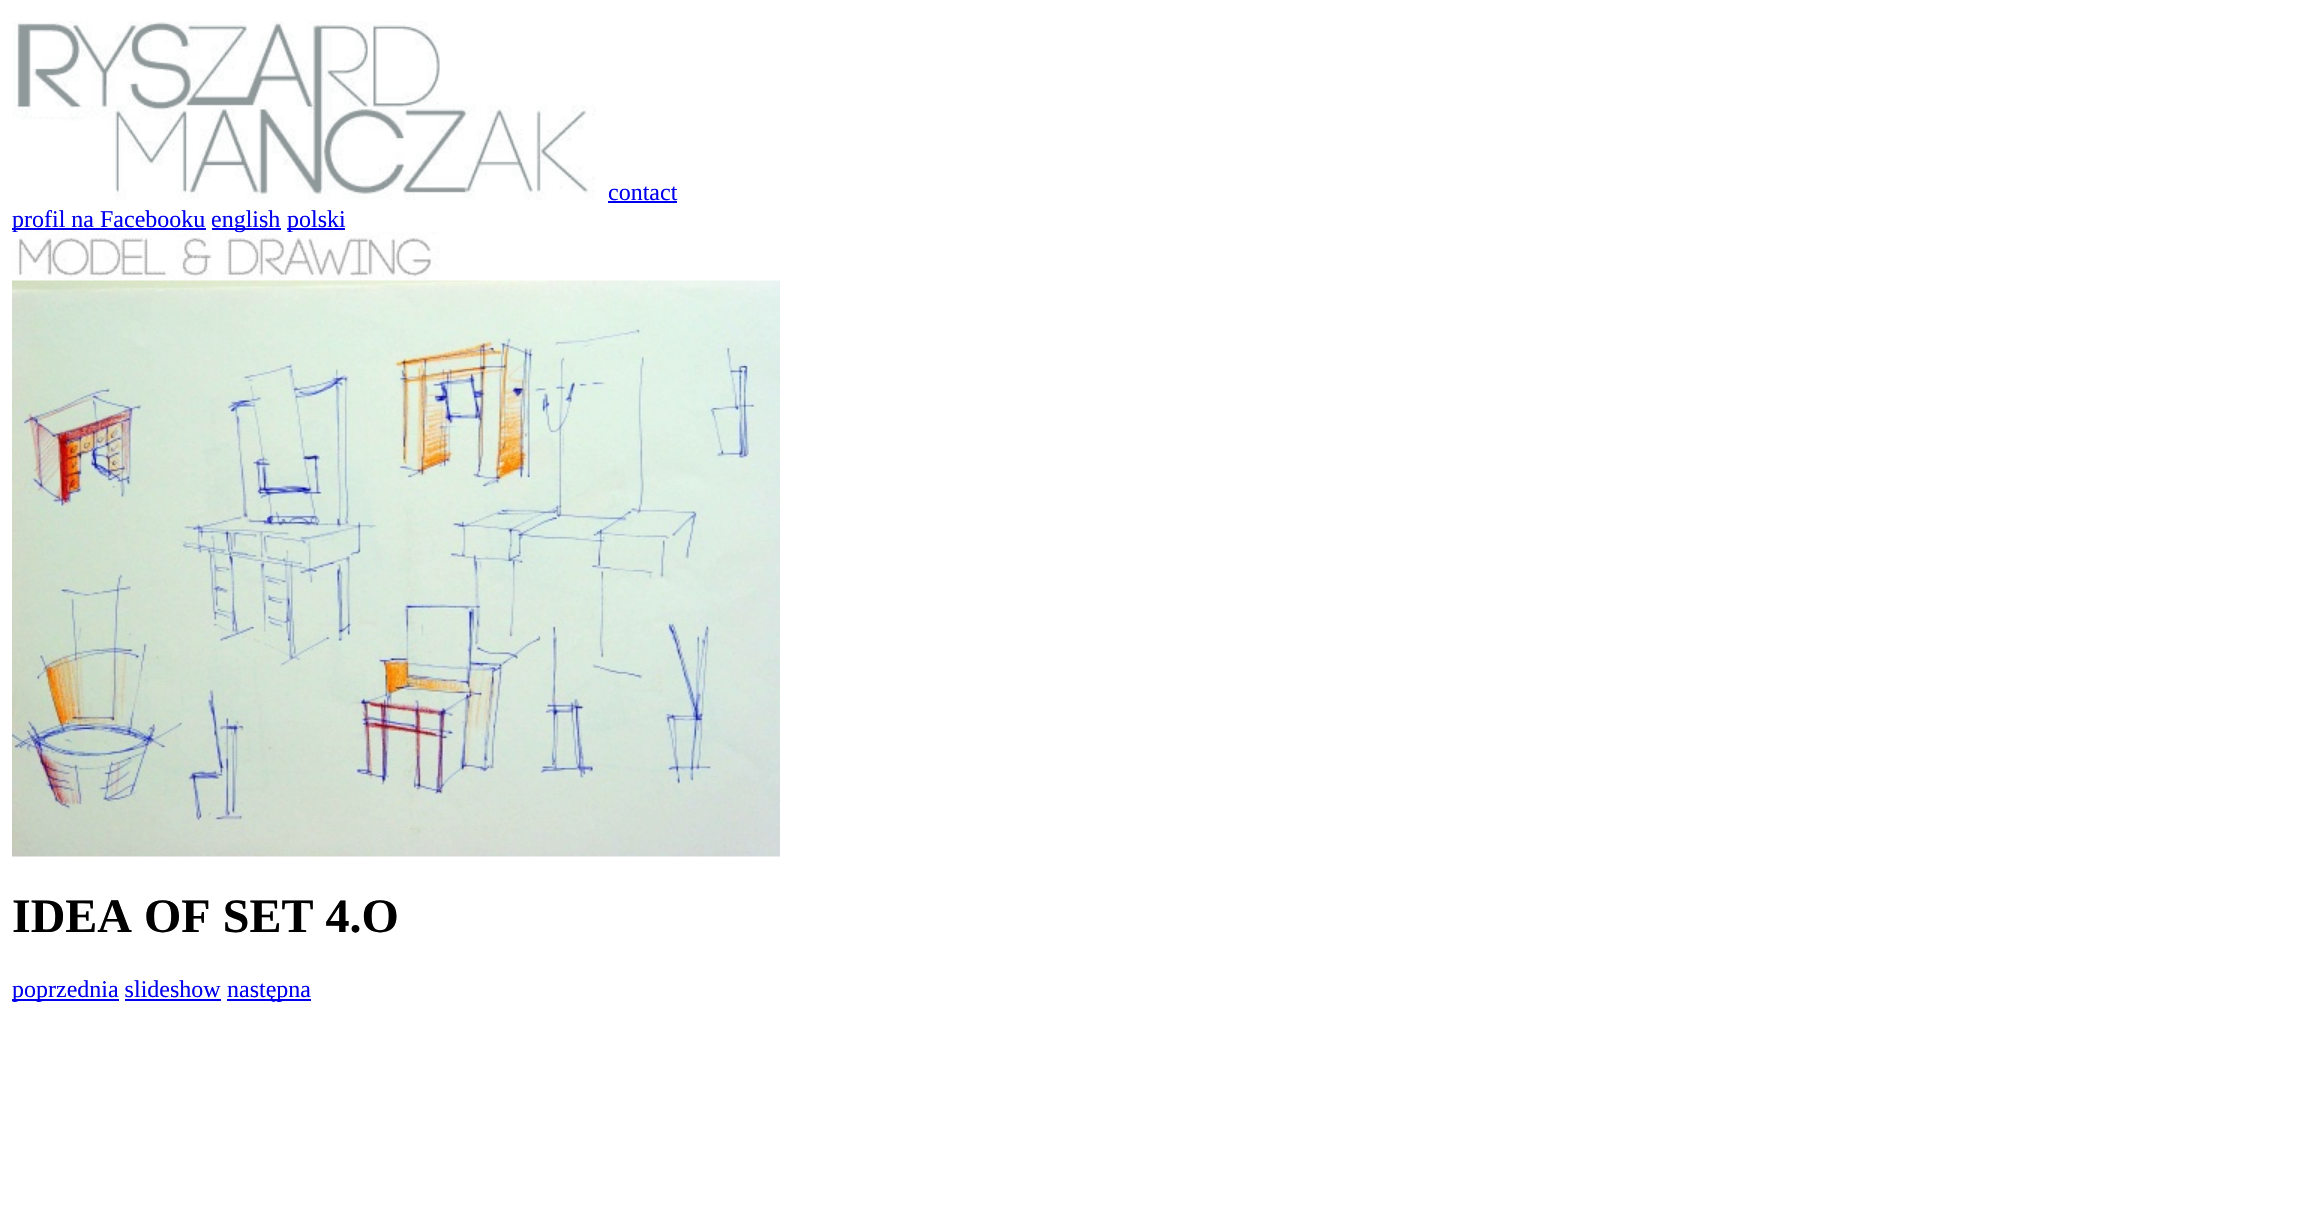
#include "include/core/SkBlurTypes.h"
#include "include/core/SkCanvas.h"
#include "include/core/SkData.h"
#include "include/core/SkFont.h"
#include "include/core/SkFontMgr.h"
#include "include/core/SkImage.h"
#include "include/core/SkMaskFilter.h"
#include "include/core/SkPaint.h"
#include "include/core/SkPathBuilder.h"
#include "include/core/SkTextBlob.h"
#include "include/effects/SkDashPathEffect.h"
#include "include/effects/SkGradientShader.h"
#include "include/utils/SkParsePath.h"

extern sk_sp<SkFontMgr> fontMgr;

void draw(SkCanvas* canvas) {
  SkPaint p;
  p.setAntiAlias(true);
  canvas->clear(SK_ColorWHITE);
  canvas->drawImageRect(SkImages::DeferredFromEncodedData(SkData::MakeFromFileName("images/1.png")), SkRect::MakeLTRB(12, 21, 596, 200), SkSamplingOptions());
  p.setColor(SkColorSetRGB(0, 0, 238));
  canvas->drawRect(SkRect::MakeLTRB(608, 201, 677, 203), p);
  canvas->drawRect(SkRect::MakeLTRB(12, 228, 206, 230), p);
  canvas->drawRect(SkRect::MakeLTRB(212, 228, 281, 230), p);
  canvas->drawRect(SkRect::MakeLTRB(287, 228, 345, 230), p);
  canvas->drawRect(SkRect::MakeLTRB(12, 999, 119, 1001), p);
  canvas->drawRect(SkRect::MakeLTRB(227, 999, 311, 1001), p);
  canvas->drawRect(SkRect::MakeLTRB(125, 999, 221, 1001), p);
  SkFont font1(fontMgr->matchFamilyStyle("Liberation Serif", SkFontStyle::Normal()), 24);
  font1.setSubpixel(true);
  canvas->drawString("contact", 608, 200, font1, p);
  canvas->drawString("profil na Facebooku", 12, 227, font1, p);
  canvas->drawString("english", 211, 227, font1, p);
  canvas->drawString("polski", 287, 227, font1, p);
  canvas->drawImageRect(SkImages::DeferredFromEncodedData(SkData::MakeFromFileName("images/2.png")), SkRect::MakeLTRB(12, 232, 440, 281), SkSamplingOptions());
  canvas->drawImageRect(SkImages::DeferredFromEncodedData(SkData::MakeFromFileName("images/3.png")), SkRect::MakeLTRB(12, 280, 780, 857), SkSamplingOptions());
  SkFont font2(fontMgr->matchFamilyStyle("Liberation Serif", SkFontStyle::Bold()), 48);
  font2.setSubpixel(true);
  p.setColor(SK_ColorBLACK);
  canvas->drawString("IDEA OF SET 4.O", 12, 932, font2, p);
  p.setColor(SkColorSetRGB(0, 0, 238));
  canvas->drawString("poprzednia slideshow", 12, 997, font1, p);
  canvas->drawString("następna", 227, 997, font1, p);
}
